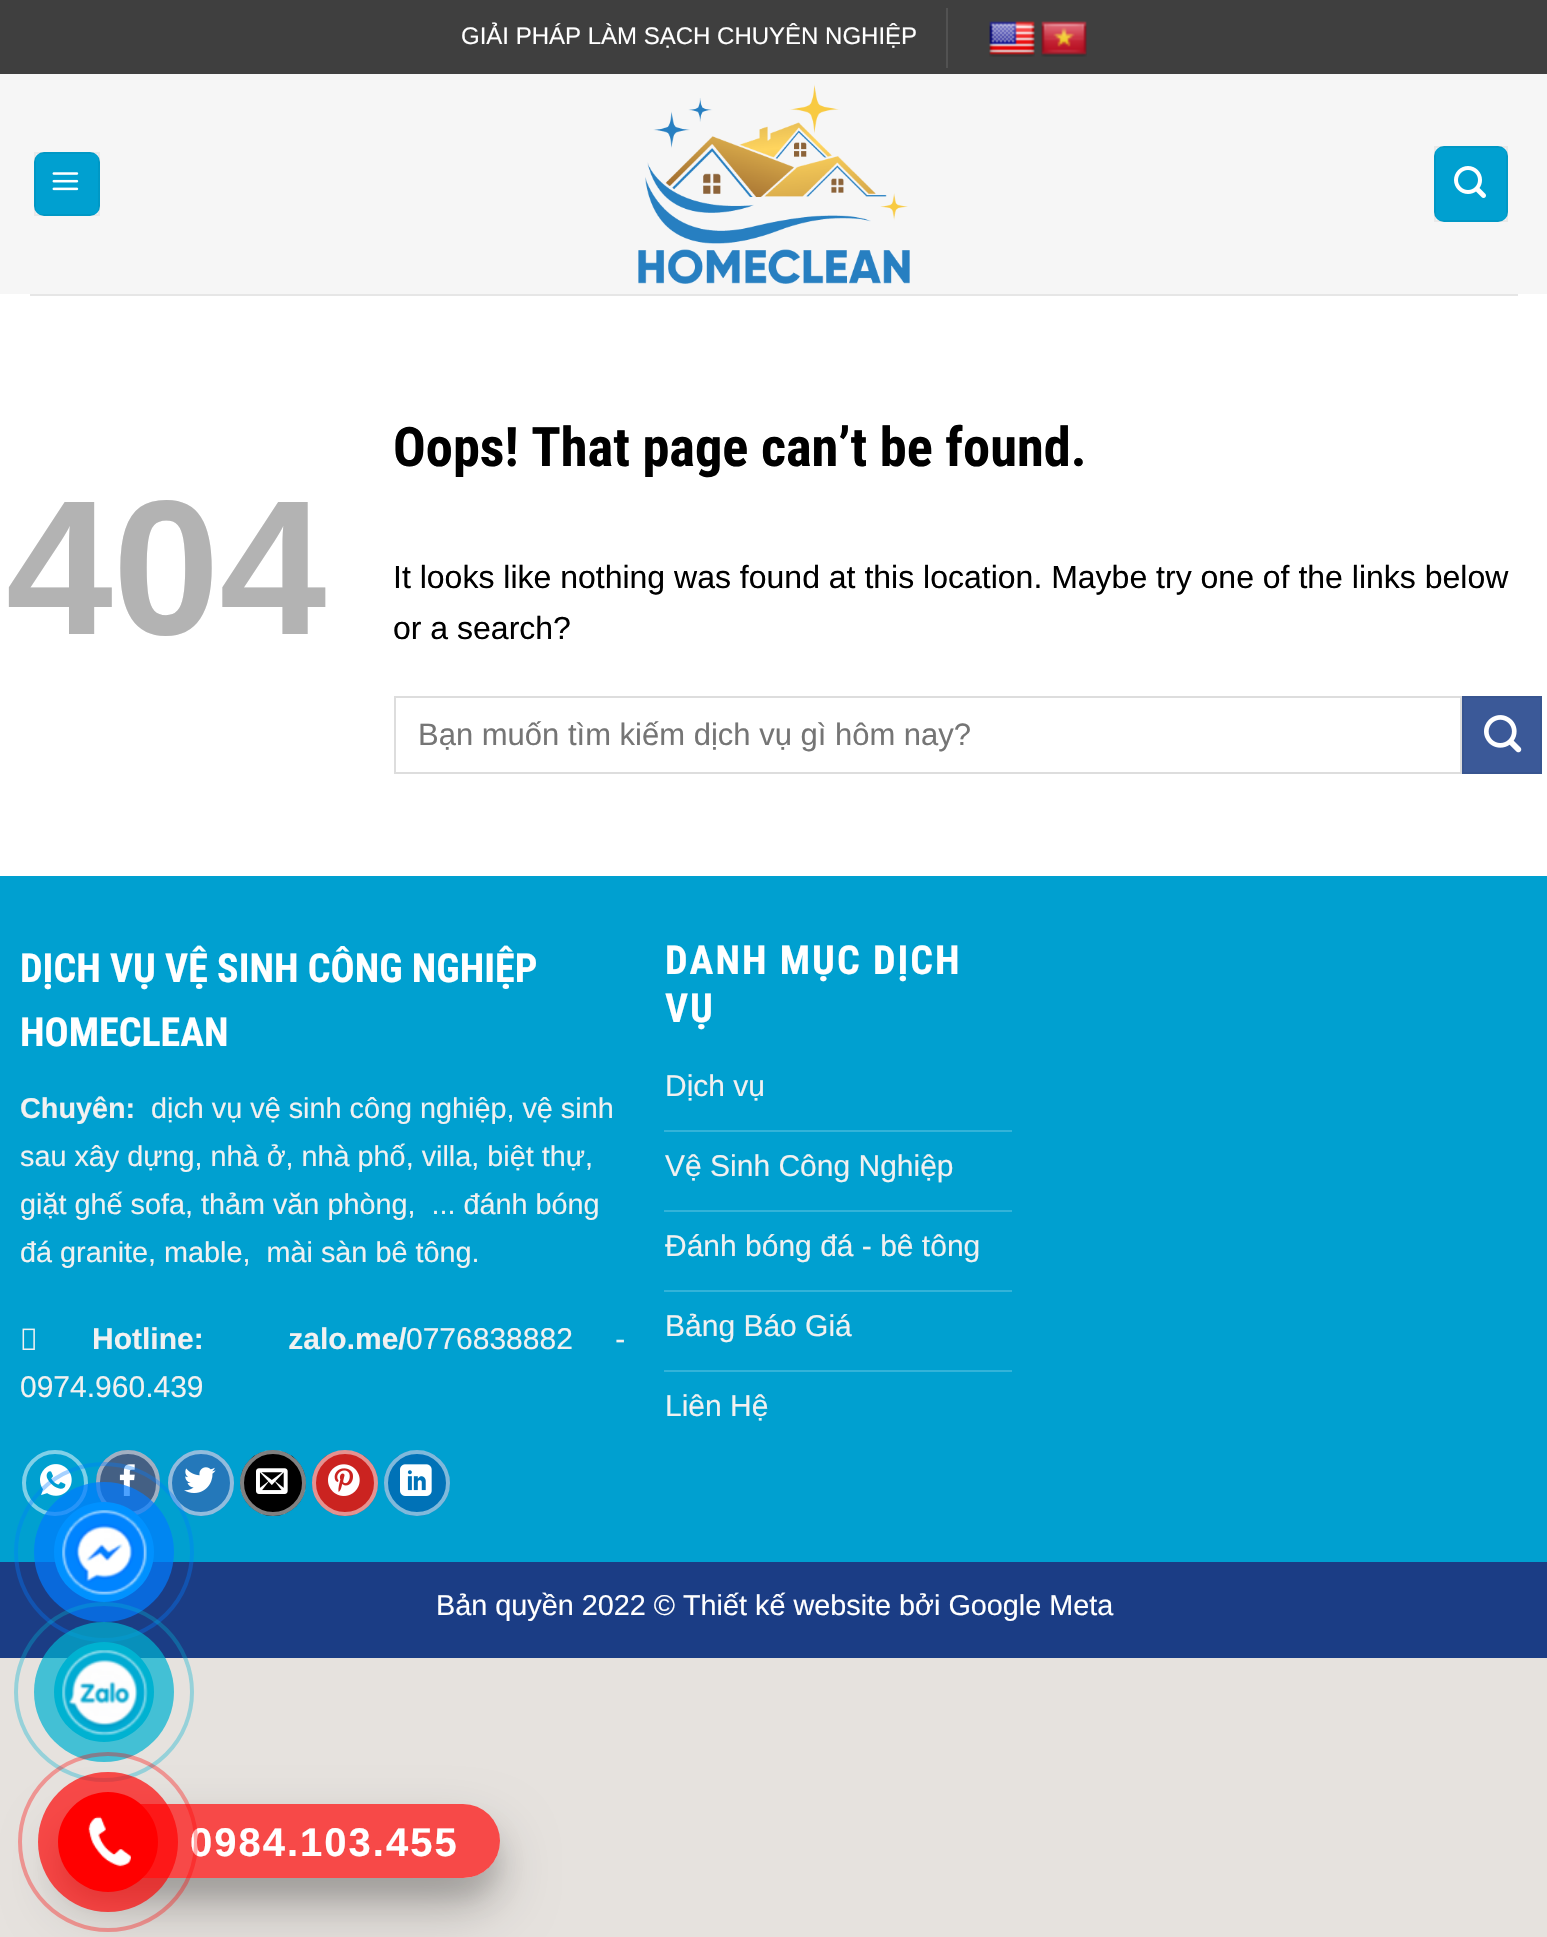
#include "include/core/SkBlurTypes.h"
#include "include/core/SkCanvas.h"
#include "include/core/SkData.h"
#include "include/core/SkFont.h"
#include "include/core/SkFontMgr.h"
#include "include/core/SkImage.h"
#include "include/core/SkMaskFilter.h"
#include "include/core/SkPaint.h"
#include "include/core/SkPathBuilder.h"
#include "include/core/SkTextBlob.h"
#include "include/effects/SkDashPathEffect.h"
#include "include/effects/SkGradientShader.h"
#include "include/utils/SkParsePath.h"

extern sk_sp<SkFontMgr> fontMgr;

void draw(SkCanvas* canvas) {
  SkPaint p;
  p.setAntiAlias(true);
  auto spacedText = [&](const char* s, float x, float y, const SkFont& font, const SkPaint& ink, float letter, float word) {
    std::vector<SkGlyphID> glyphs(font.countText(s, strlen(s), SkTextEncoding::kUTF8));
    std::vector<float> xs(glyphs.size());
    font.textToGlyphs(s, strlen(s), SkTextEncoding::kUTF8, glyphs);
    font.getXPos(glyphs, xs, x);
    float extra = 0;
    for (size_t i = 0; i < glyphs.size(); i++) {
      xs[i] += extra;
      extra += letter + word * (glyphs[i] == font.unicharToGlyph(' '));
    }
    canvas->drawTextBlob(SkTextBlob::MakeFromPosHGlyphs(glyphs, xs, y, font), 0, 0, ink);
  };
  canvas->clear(SkColorSetRGB(230, 226, 222));
  p.setColor(SK_ColorWHITE);
  canvas->drawRect(SkRect::MakeLTRB(0, 294, 1547, 876), p);
  p.setColor(SkColorSetRGB(63, 63, 63));
  canvas->drawRect(SkRect::MakeLTRB(0, 0, 1547, 74), p);
  p.setColor(SkColorSetRGB(82, 82, 82));
  canvas->drawRect(SkRect::MakeLTRB(946, 8, 948, 68), p);
  canvas->drawImageRect(SkImages::DeferredFromEncodedData(SkData::MakeFromFileName("images/1.png")), SkRect::MakeLTRB(989, 21, 1035, 57), SkSamplingOptions());
  canvas->drawImageRect(SkImages::DeferredFromEncodedData(SkData::MakeFromFileName("images/2.png")), SkRect::MakeLTRB(1041, 21, 1087, 57), SkSamplingOptions());
  p.setColor(SkColorSetRGB(246, 246, 246));
  canvas->drawRect(SkRect::MakeLTRB(0, 74, 1547, 294), p);
  p.setColor(SkColorSetRGB(0, 160, 208));
  canvas->drawRoundRect(SkRect::MakeLTRB(34, 152, 100, 216), 10, 10, p);
  p.setStyle(SkPaint::kStroke_Style);
  p.setStrokeWidth(2);
  p.setColor(SkColorSetARGB(13, 0, 0, 0));
  canvas->drawRect(SkRect::MakeLTRB(35, 153, 99, 215), p);
  canvas->drawImageRect(SkImages::DeferredFromEncodedData(SkData::MakeFromFileName("images/3.png")), SkRect::MakeLTRB(52, 172, 79, 191), SkSamplingOptions());
  canvas->drawImageRect(SkImages::DeferredFromEncodedData(SkData::MakeFromFileName("images/4.png")), SkRect::MakeLTRB(638, 84, 910, 284), SkSamplingOptions());
  p.setStyle(SkPaint::kFill_Style);
  p.setColor(SkColorSetRGB(0, 160, 208));
  canvas->drawRoundRect(SkRect::MakeLTRB(1434, 146, 1508, 222), 10, 10, p);
  p.setStyle(SkPaint::kStroke_Style);
  p.setColor(SkColorSetARGB(13, 0, 0, 0));
  canvas->drawRect(SkRect::MakeLTRB(1435, 147, 1507, 221), p);
  canvas->drawImageRect(SkImages::DeferredFromEncodedData(SkData::MakeFromFileName("images/5.png")), SkRect::MakeLTRB(1454, 166, 1486, 198), SkSamplingOptions());
  p.setStyle(SkPaint::kFill_Style);
  p.setColor(SkColorSetRGB(230, 230, 230));
  canvas->drawRect(SkRect::MakeLTRB(30, 294, 1518, 296), p);
  p.setStyle(SkPaint::kStroke_Style);
  p.setColor(SkColorSetRGB(221, 221, 221));
  canvas->drawRect(SkRect::MakeLTRB(395, 697, 1461, 773), p);
  p.setStyle(SkPaint::kFill_Style);
  p.setColor(SkColorSetRGB(59, 89, 152));
  canvas->drawRect(SkRect::MakeLTRB(1463, 697, 1541, 773), p);
  p.setStyle(SkPaint::kStroke_Style);
  p.setColor(SkColorSetRGB(56, 85, 144));
  canvas->drawRect(SkRect::MakeLTRB(1463, 697, 1541, 773), p);
  canvas->drawImageRect(SkImages::DeferredFromEncodedData(SkData::MakeFromFileName("images/6.png")), SkRect::MakeLTRB(1484, 715, 1522, 753), SkSamplingOptions());
  p.setStyle(SkPaint::kFill_Style);
  p.setColor(SkColorSetRGB(0, 160, 208));
  canvas->drawRect(SkRect::MakeLTRB(0, 876, 1547, 1562), p);
  canvas->drawImageRect(SkImages::DeferredFromEncodedData(SkData::MakeFromFileName("images/7.png")), SkRect::MakeLTRB(22, 1328, 35, 1350), SkSamplingOptions());
  p.setStyle(SkPaint::kStroke_Style);
  p.setStrokeWidth(4);
  p.setColor(SkColorSetRGB(128, 208, 232));
  canvas->drawCircle(55, 1483, 31, p);
  canvas->drawImageRect(SkImages::DeferredFromEncodedData(SkData::MakeFromFileName("images/8.png")), SkRect::MakeLTRB(40, 1464, 72, 1496), SkSamplingOptions());
  p.setStyle(SkPaint::kFill_Style);
  p.setColor(SkColorSetRGB(68, 96, 132));
  canvas->drawRoundRect(SkRect::MakeLTRB(96, 1450, 160, 1516), 32, 32, p);
  p.setStyle(SkPaint::kStroke_Style);
  p.setColor(SkColorSetARGB(128, 255, 255, 255));
  canvas->drawRoundRect(SkRect::MakeLTRB(98, 1452, 158, 1514), 30, 30, p);
  canvas->drawImageRect(SkImages::DeferredFromEncodedData(SkData::MakeFromFileName("images/9.png")), SkRect::MakeLTRB(119, 1464, 135, 1496), SkSamplingOptions());
  p.setStyle(SkPaint::kFill_Style);
  p.setColor(SkColorSetRGB(36, 120, 186));
  canvas->drawCircle(201, 1483, 33, p);
  p.setStyle(SkPaint::kStroke_Style);
  p.setColor(SkColorSetARGB(128, 255, 255, 255));
  canvas->drawCircle(201, 1483, 31, p);
  canvas->drawImageRect(SkImages::DeferredFromEncodedData(SkData::MakeFromFileName("images/10.png")), SkRect::MakeLTRB(184, 1467, 216, 1493), SkSamplingOptions());
  p.setStyle(SkPaint::kFill_Style);
  p.setColor(SK_ColorBLACK);
  canvas->drawCircle(273, 1483, 33, p);
  p.setStyle(SkPaint::kStroke_Style);
  p.setColor(SkColorSetARGB(128, 255, 255, 255));
  canvas->drawCircle(273, 1483, 31, p);
  canvas->drawImageRect(SkImages::DeferredFromEncodedData(SkData::MakeFromFileName("images/11.png")), SkRect::MakeLTRB(256, 1468, 288, 1494), SkSamplingOptions());
  p.setStyle(SkPaint::kFill_Style);
  p.setColor(SkColorSetRGB(203, 35, 32));
  canvas->drawCircle(345, 1483, 33, p);
  p.setStyle(SkPaint::kStroke_Style);
  p.setColor(SkColorSetARGB(128, 255, 255, 255));
  canvas->drawCircle(345, 1483, 31, p);
  canvas->drawImageRect(SkImages::DeferredFromEncodedData(SkData::MakeFromFileName("images/12.png")), SkRect::MakeLTRB(328, 1464, 360, 1496), SkSamplingOptions());
  p.setStyle(SkPaint::kFill_Style);
  p.setColor(SkColorSetRGB(0, 114, 183));
  canvas->drawCircle(417, 1483, 33, p);
  p.setStyle(SkPaint::kStroke_Style);
  p.setColor(SkColorSetARGB(128, 255, 255, 255));
  canvas->drawCircle(417, 1483, 31, p);
  canvas->drawImageRect(SkImages::DeferredFromEncodedData(SkData::MakeFromFileName("images/13.png")), SkRect::MakeLTRB(400, 1464, 432, 1496), SkSamplingOptions());
  p.setStyle(SkPaint::kFill_Style);
  p.setColor(SkColorSetRGB(51, 179, 217));
  canvas->drawRect(SkRect::MakeLTRB(664, 1130, 1012, 1132), p);
  canvas->drawRect(SkRect::MakeLTRB(664, 1210, 1012, 1212), p);
  canvas->drawRect(SkRect::MakeLTRB(664, 1290, 1012, 1292), p);
  canvas->drawRect(SkRect::MakeLTRB(664, 1370, 1012, 1372), p);
  p.setColor(SkColorSetRGB(27, 61, 133));
  canvas->drawRect(SkRect::MakeLTRB(0, 1562, 1547, 1658), p);
  p.setStyle(SkPaint::kStroke_Style);
  p.setColor(SkColorSetARGB(89, 0, 123, 255));
  canvas->drawCircle(104, 1552, 88, p);
  p.setStyle(SkPaint::kFill_Style);
  p.setColor(SkColorSetARGB(179, 0, 123, 255));
  canvas->drawCircle(104, 1552, 70, p);
  p.setColor(SkColorSetRGB(0, 145, 255));
  canvas->drawCircle(104, 1552, 50, p);
  canvas->drawImageRect(SkImages::DeferredFromEncodedData(SkData::MakeFromFileName("images/14.png")), SkRect::MakeLTRB(62, 1510, 147, 1595), SkSamplingOptions());
  canvas->save();
  canvas->clipPath(SkPathBuilder(SkPathFillType::kEvenOdd).moveTo(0, 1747).lineTo(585, 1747).lineTo(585, 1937).lineTo(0, 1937).close().moveTo(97, 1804).lineTo(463, 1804).cubicTo(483.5f, 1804, 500, 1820.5f, 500, 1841).cubicTo(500, 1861.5f, 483.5f, 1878, 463, 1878).lineTo(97, 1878).cubicTo(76.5f, 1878, 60, 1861.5f, 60, 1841).cubicTo(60, 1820.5f, 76.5f, 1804, 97, 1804).close().detach(), true);
  p.setColor(SkColorSetARGB(64, 0, 0, 0));
  p.setMaskFilter(SkMaskFilter::MakeBlur(kNormal_SkBlurStyle, 28));
  canvas->drawRoundRect(SkRect::MakeLTRB(60, 1832, 500, 1906), 37, 37, p);
  p.setMaskFilter(nullptr);
  canvas->restore();
  p.setStyle(SkPaint::kStroke_Style);
  p.setColor(SkColorSetARGB(89, 0, 178, 209));
  canvas->drawCircle(104, 1692, 88, p);
  p.setStyle(SkPaint::kFill_Style);
  p.setColor(SkColorSetARGB(181, 0, 178, 209));
  canvas->drawCircle(104, 1692, 70, p);
  p.setColor(SkColorSetRGB(0, 178, 209));
  canvas->drawCircle(104, 1692, 50, p);
  canvas->drawImageRect(SkImages::DeferredFromEncodedData(SkData::MakeFromFileName("images/15.png")), SkRect::MakeLTRB(62, 1650, 148, 1736), SkSamplingOptions());
  canvas->save();
  canvas->clipPath(SkPathBuilder(SkPathFillType::kEvenOdd).moveTo(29, 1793).lineTo(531, 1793).lineTo(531, 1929).lineTo(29, 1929).close().moveTo(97, 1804).lineTo(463, 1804).cubicTo(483.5f, 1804, 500, 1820.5f, 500, 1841).cubicTo(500, 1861.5f, 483.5f, 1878, 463, 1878).lineTo(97, 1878).cubicTo(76.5f, 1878, 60, 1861.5f, 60, 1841).cubicTo(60, 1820.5f, 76.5f, 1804, 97, 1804).close().detach(), true);
  p.setColor(SkColorSetARGB(26, 0, 0, 0));
  p.setMaskFilter(SkMaskFilter::MakeBlur(kNormal_SkBlurStyle, 10));
  canvas->drawRoundRect(SkRect::MakeLTRB(60, 1824, 500, 1898), 37, 37, p);
  p.setMaskFilter(nullptr);
  canvas->restore();
  p.setColor(SkColorSetARGB(173, 255, 0, 0));
  canvas->drawRoundRect(SkRect::MakeLTRB(60, 1804, 500, 1878), 37, 37, p);
  SkFont font1(fontMgr->matchFamilyStyle("Liberation Sans", SkFontStyle::Normal()), 24);
  font1.setSubpixel(true);
  p.setColor(SK_ColorWHITE);
  canvas->drawString("GIẢI PHÁP LÀM SẠCH CHUYÊN NGHIỆP", 461, 44, font1, p);
  SkFont font2(fontMgr->matchFamilyStyle("Liberation Sans", SkFontStyle::Bold()), 192);
  font2.setSubpixel(true);
  p.setColor(SkColorSetRGB(179, 179, 179));
  canvas->drawString("404", 6, 634, font2, p);
  SkFont font3(fontMgr->matchFamilyStyle("Roboto Condensed", SkFontStyle::Bold()), 54.4f);
  font3.setSubpixel(true);
  p.setColor(SK_ColorBLACK);
  canvas->drawString("Oops! That page can’t be found.", 393, 466, font3, p);
  SkFont font4(fontMgr->matchFamilyStyle("Liberation Sans", SkFontStyle::Normal()), 32);
  font4.setSubpixel(true);
  canvas->drawString("It looks like nothing was found at this location. Maybe try one of the links below", 393, 588, font4, p);
  canvas->drawString("or a search?", 393, 639, font4, p);
  SkFont font5(fontMgr->matchFamilyStyle("Liberation Sans", SkFontStyle::Normal()), 31);
  font5.setSubpixel(true);
  p.setColor(SkColorSetRGB(117, 117, 117));
  canvas->drawString("Bạn muốn tìm kiếm dịch vụ gì hôm nay?", 418, 745, font5, p);
  SkFont font6(fontMgr->matchFamilyStyle("Roboto Condensed", SkFontStyle::Bold()), 40);
  font6.setSubpixel(true);
  p.setColor(SK_ColorWHITE);
  canvas->drawString("DỊCH VỤ VỆ SINH CÔNG NGHIỆP", 20, 982, font6, p);
  canvas->drawString("HOMECLEAN", 20, 1046, font6, p);
  SkFont font7(fontMgr->matchFamilyStyle("Liberation Sans", SkFontStyle::Bold()), 28.8f);
  font7.setSubpixel(true);
  p.setColor(SkColorSetRGB(241, 241, 241));
  canvas->drawString("Chuyên:", 20, 1118, font7, p);
  SkFont font8(fontMgr->matchFamilyStyle("Liberation Sans", SkFontStyle::Normal()), 28.8f);
  font8.setSubpixel(true);
  canvas->drawString("dịch vụ vệ sinh công nghiệp, vệ sinh", 151, 1118, font8, p);
  canvas->drawString("sau xây dựng, nhà ở, nhà phố, villa, biệt thự,", 20, 1166, font8, p);
  canvas->drawString("giặt ghế sofa, thảm văn phòng,  ... đánh bóng", 20, 1214, font8, p);
  canvas->drawString("đá granite, mable,  mài sàn bê tông.", 20, 1262, font8, p);
  SkFont font9(fontMgr->matchFamilyStyle("Liberation Sans", SkFontStyle::Bold()), 30);
  font9.setSubpixel(true);
  spacedText("Hotline:  zalo.me/", 92, 1349, font9, p, 0, 34);
  SkFont font10(fontMgr->matchFamilyStyle("Liberation Sans", SkFontStyle::Normal()), 30);
  font10.setSubpixel(true);
  spacedText("0776838882 -", 406, 1349, font10, p, 0, 34);
  canvas->drawString("0974.960.439", 20, 1397, font10, p);
  p.setColor(SK_ColorWHITE);
  spacedText("DANH MỤC DỊCH", 665, 974, font6, p, 2, 0);
  spacedText("VỤ", 665, 1022, font6, p, 2, 0);
  p.setColor(SkColorSetRGB(241, 241, 241));
  canvas->drawString("Dịch vụ", 665, 1096, font10, p);
  canvas->drawString("Vệ Sinh Công Nghiệp", 665, 1176, font10, p);
  canvas->drawString("Đánh bóng đá - bê tông", 665, 1256, font10, p);
  canvas->drawString("Bảng Báo Giá", 665, 1336, font10, p);
  canvas->drawString("Liên Hệ", 665, 1416, font10, p);
  p.setColor(SK_ColorWHITE);
  canvas->drawString("Bản quyền 2022 © Thiết kế website bởi Google Meta", 436, 1615, font8, p);
  SkFont font11(fontMgr->matchFamilyStyle("Liberation Sans", SkFontStyle::Bold()), 40);
  font11.setSubpixel(true);
  spacedText("0984.103.455", 190, 1856, font11, p, 2, 0);
  p.setStyle(SkPaint::kStroke_Style);
  p.setColor(SkColorSetARGB(87, 255, 0, 0));
  canvas->drawCircle(108, 1842, 88, p);
  p.setStyle(SkPaint::kFill_Style);
  p.setColor(SkColorSetARGB(173, 255, 0, 0));
  canvas->drawCircle(108, 1842, 70, p);
  p.setColor(SkColorSetRGB(255, 0, 0));
  canvas->drawCircle(108, 1842, 50, p);
  canvas->drawImageRect(SkImages::DeferredFromEncodedData(SkData::MakeFromFileName("images/16.png")), SkRect::MakeLTRB(88, 1816, 131, 1867), SkSamplingOptions());
}
